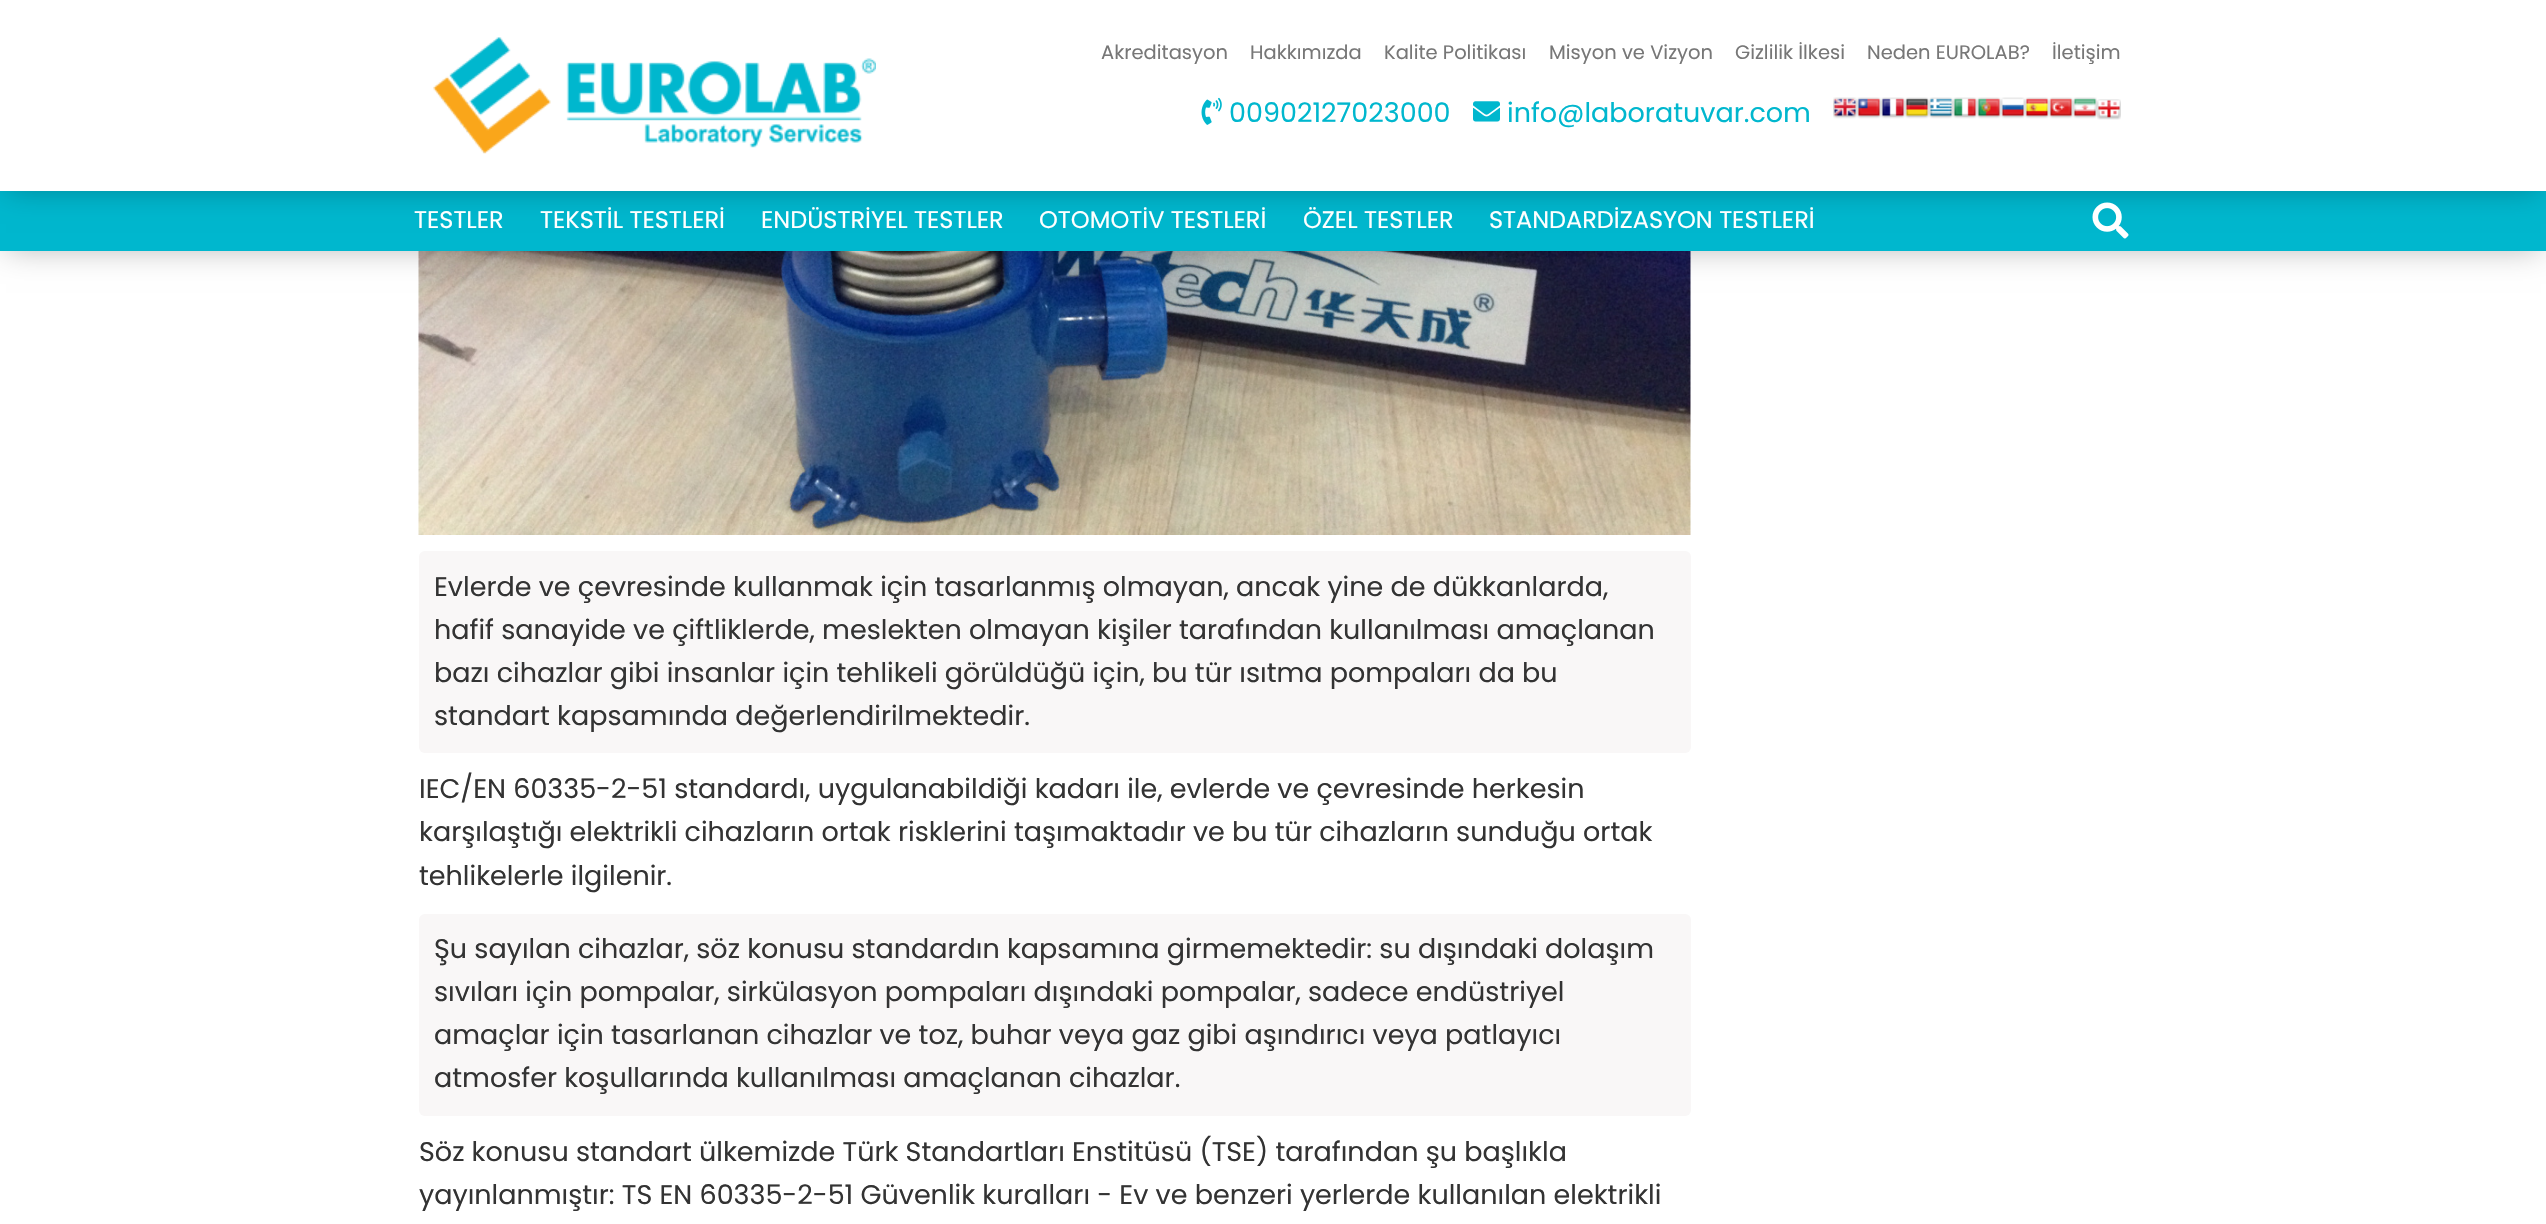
#include "include/core/SkBlurTypes.h"
#include "include/core/SkCanvas.h"
#include "include/core/SkData.h"
#include "include/core/SkFont.h"
#include "include/core/SkFontMgr.h"
#include "include/core/SkImage.h"
#include "include/core/SkMaskFilter.h"
#include "include/core/SkPaint.h"
#include "include/core/SkPathBuilder.h"
#include "include/core/SkTextBlob.h"
#include "include/effects/SkDashPathEffect.h"
#include "include/effects/SkGradientShader.h"
#include "include/utils/SkParsePath.h"

extern sk_sp<SkFontMgr> fontMgr;

void draw(SkCanvas* canvas) {
  SkPaint p;
  p.setAntiAlias(true);
  canvas->clear(SK_ColorWHITE);
  canvas->drawImageRect(SkImages::DeferredFromEncodedData(SkData::MakeFromFileName("images/17.png")), SkRect::MakeLTRB(418, 251, 1691, 535), SkSamplingOptions());
  p.setColor(SkColorSetARGB(77, 0, 0, 0));
  p.setMaskFilter(SkMaskFilter::MakeBlur(kNormal_SkBlurStyle, 15));
  canvas->drawRect(SkRect::MakeLTRB(6, 9, 2541, 248), p);
  p.setMaskFilter(nullptr);
  p.setColor(SkColorSetRGB(0, 183, 206));
  canvas->drawRect(SkRect::MakeLTRB(0, 191, 2546, 251), p);
  p.setColor(SkColorSetARGB(77, 0, 0, 0));
  p.setMaskFilter(SkMaskFilter::MakeBlur(kNormal_SkBlurStyle, 15));
  canvas->drawRect(SkRect::MakeLTRB(6, 9, 2541, 188), p);
  p.setMaskFilter(nullptr);
  p.setColor(SK_ColorWHITE);
  canvas->drawRect(SkRect::MakeLTRB(0, 0, 2546, 191), p);
  canvas->drawImageRect(SkImages::DeferredFromEncodedData(SkData::MakeFromFileName("images/1.png")), SkRect::MakeLTRB(433, 37, 876, 154), SkSamplingOptions());
  canvas->drawImageRect(SkImages::DeferredFromEncodedData(SkData::MakeFromFileName("images/2.png")), SkRect::MakeLTRB(1201, 97, 1222, 125), SkSamplingOptions());
  canvas->drawImageRect(SkImages::DeferredFromEncodedData(SkData::MakeFromFileName("images/3.png")), SkRect::MakeLTRB(1473, 101, 1500, 122), SkSamplingOptions());
  canvas->drawImageRect(SkImages::DeferredFromEncodedData(SkData::MakeFromFileName("images/4.png")), SkRect::MakeLTRB(1833, 97, 1857, 119), SkSamplingOptions());
  canvas->drawImageRect(SkImages::DeferredFromEncodedData(SkData::MakeFromFileName("images/5.png")), SkRect::MakeLTRB(1857, 97, 1881, 119), SkSamplingOptions());
  canvas->drawImageRect(SkImages::DeferredFromEncodedData(SkData::MakeFromFileName("images/6.png")), SkRect::MakeLTRB(1881, 97, 1905, 119), SkSamplingOptions());
  canvas->drawImageRect(SkImages::DeferredFromEncodedData(SkData::MakeFromFileName("images/7.png")), SkRect::MakeLTRB(1905, 97, 1929, 119), SkSamplingOptions());
  canvas->drawImageRect(SkImages::DeferredFromEncodedData(SkData::MakeFromFileName("images/8.png")), SkRect::MakeLTRB(1929, 97, 1953, 119), SkSamplingOptions());
  canvas->drawImageRect(SkImages::DeferredFromEncodedData(SkData::MakeFromFileName("images/9.png")), SkRect::MakeLTRB(1953, 97, 1977, 119), SkSamplingOptions());
  canvas->drawImageRect(SkImages::DeferredFromEncodedData(SkData::MakeFromFileName("images/10.png")), SkRect::MakeLTRB(1977, 97, 2001, 119), SkSamplingOptions());
  canvas->drawImageRect(SkImages::DeferredFromEncodedData(SkData::MakeFromFileName("images/11.png")), SkRect::MakeLTRB(2001, 97, 2025, 119), SkSamplingOptions());
  canvas->drawImageRect(SkImages::DeferredFromEncodedData(SkData::MakeFromFileName("images/12.png")), SkRect::MakeLTRB(2025, 97, 2049, 119), SkSamplingOptions());
  canvas->drawImageRect(SkImages::DeferredFromEncodedData(SkData::MakeFromFileName("images/13.png")), SkRect::MakeLTRB(2049, 97, 2073, 119), SkSamplingOptions());
  canvas->drawImageRect(SkImages::DeferredFromEncodedData(SkData::MakeFromFileName("images/14.png")), SkRect::MakeLTRB(2073, 97, 2097, 119), SkSamplingOptions());
  canvas->drawImageRect(SkImages::DeferredFromEncodedData(SkData::MakeFromFileName("images/15.png")), SkRect::MakeLTRB(2097, 99, 2121, 120), SkSamplingOptions());
  canvas->drawImageRect(SkImages::DeferredFromEncodedData(SkData::MakeFromFileName("images/16.png")), SkRect::MakeLTRB(2092, 202, 2129, 239), SkSamplingOptions());
  p.setColor(SkColorSetRGB(249, 247, 247));
  canvas->drawRoundRect(SkRect::MakeLTRB(419, 551, 1691, 753), 6, 6, p);
  canvas->drawRoundRect(SkRect::MakeLTRB(419, 914, 1691, 1116), 6, 6, p);
  SkFont font1(fontMgr->matchFamilyStyle("Poppins", SkFontStyle::Normal()), 19.5f);
  font1.setSubpixel(true);
  p.setColor(SkColorSetRGB(119, 119, 119));
  canvas->drawString("Akreditasyon", 1101, 59, font1, p);
  canvas->drawString("Hakkımızda", 1250, 59, font1, p);
  canvas->drawString("Kalite Politikası", 1384, 59, font1, p);
  canvas->drawString("Misyon ve Vizyon", 1549, 59, font1, p);
  canvas->drawString("Gizlilik İlkesi", 1735, 59, font1, p);
  canvas->drawString("Neden EUROLAB?", 1867, 59, font1, p);
  canvas->drawString("İletişim", 2052, 59, font1, p);
  SkFont font2(fontMgr->matchFamilyStyle("Poppins", SkFontStyle::Normal()), 27);
  font2.setSubpixel(true);
  p.setColor(SkColorSetRGB(0, 183, 206));
  canvas->drawString("00902127023000", 1229, 122, font2, p);
  canvas->drawString("info@laboratuvar.com", 1507, 122, font2, p);
  SkFont font3(fontMgr->matchFamilyStyle("Poppins", SkFontStyle::Normal()), 24);
  font3.setSubpixel(true);
  p.setColor(SK_ColorWHITE);
  canvas->drawString("TESTLER", 414, 228, font3, p);
  canvas->drawString("TEKSTİL TESTLERİ", 540, 228, font3, p);
  canvas->drawString("ENDÜSTRİYEL TESTLER", 761, 228, font3, p);
  canvas->drawString("OTOMOTİV TESTLERİ", 1039, 228, font3, p);
  canvas->drawString("ÖZEL TESTLER", 1303, 228, font3, p);
  canvas->drawString("STANDARDİZASYON TESTLERİ", 1489, 228, font3, p);
  p.setColor(SkColorSetRGB(51, 51, 51));
  canvas->drawString("Evlerde ve çevresinde kullanmak için tasarlanmış olmayan, ancak yine de dükkanlarda,", 434, 596, font2, p);
  canvas->drawString("hafif sanayide ve çiftliklerde, meslekten olmayan kişiler tarafından kullanılması amaçlanan", 434, 639, font2, p);
  canvas->drawString("bazı cihazlar gibi insanlar için tehlikeli görüldüğü için, bu tür ısıtma pompaları da bu", 434, 682, font2, p);
  canvas->drawString("standart kapsamında değerlendirilmektedir.", 434, 725, font2, p);
  canvas->drawString("IEC/EN 60335-2-51 standardı, uygulanabildiği kadarı ile, evlerde ve çevresinde herkesin", 419, 798, font2, p);
  canvas->drawString("karşılaştığı elektrikli cihazların ortak risklerini taşımaktadır ve bu tür cihazların sunduğu ortak", 419, 841, font2, p);
  canvas->drawString("tehlikelerle ilgilenir.", 419, 885, font2, p);
  canvas->drawString("Şu sayılan cihazlar, söz konusu standardın kapsamına girmemektedir: su dışındaki dolaşım", 434, 958, font2, p);
  canvas->drawString("sıvıları için pompalar, sirkülasyon pompaları dışındaki pompalar, sadece endüstriyel", 434, 1001, font2, p);
  canvas->drawString("amaçlar için tasarlanan cihazlar ve toz, buhar veya gaz gibi aşındırıcı veya patlayıcı", 434, 1044, font2, p);
  canvas->drawString("atmosfer koşullarında kullanılması amaçlanan cihazlar.", 434, 1087, font2, p);
  canvas->drawString("Söz konusu standart ülkemizde Türk Standartları Enstitüsü (TSE) tarafından şu başlıkla", 419, 1161, font2, p);
  canvas->drawString("yayınlanmıştır: TS EN 60335-2-51 Güvenlik kuralları - Ev ve benzeri yerlerde kullanılan elektrikli", 419, 1204, font2, p);
}
